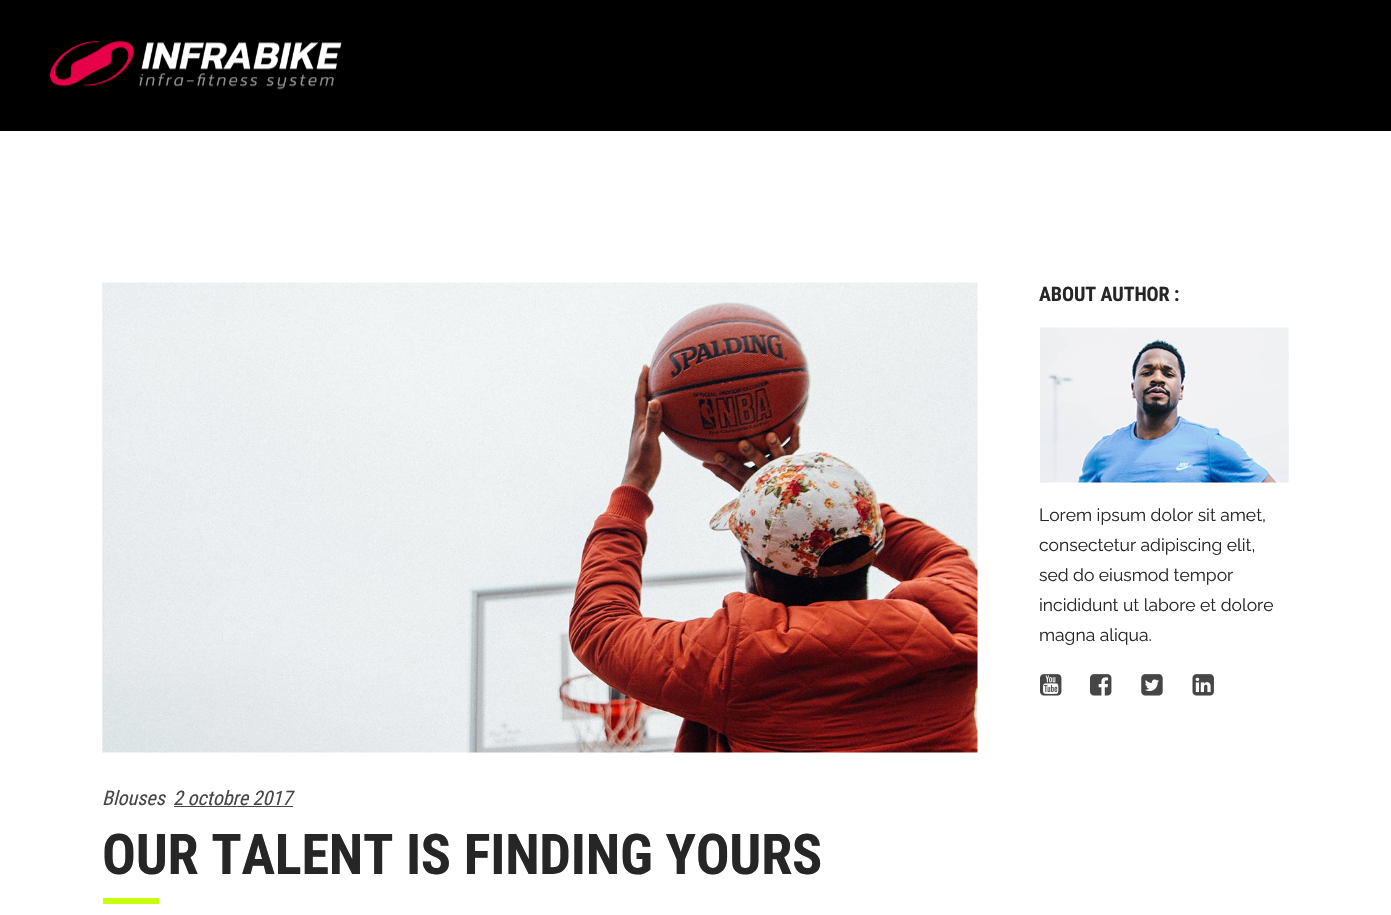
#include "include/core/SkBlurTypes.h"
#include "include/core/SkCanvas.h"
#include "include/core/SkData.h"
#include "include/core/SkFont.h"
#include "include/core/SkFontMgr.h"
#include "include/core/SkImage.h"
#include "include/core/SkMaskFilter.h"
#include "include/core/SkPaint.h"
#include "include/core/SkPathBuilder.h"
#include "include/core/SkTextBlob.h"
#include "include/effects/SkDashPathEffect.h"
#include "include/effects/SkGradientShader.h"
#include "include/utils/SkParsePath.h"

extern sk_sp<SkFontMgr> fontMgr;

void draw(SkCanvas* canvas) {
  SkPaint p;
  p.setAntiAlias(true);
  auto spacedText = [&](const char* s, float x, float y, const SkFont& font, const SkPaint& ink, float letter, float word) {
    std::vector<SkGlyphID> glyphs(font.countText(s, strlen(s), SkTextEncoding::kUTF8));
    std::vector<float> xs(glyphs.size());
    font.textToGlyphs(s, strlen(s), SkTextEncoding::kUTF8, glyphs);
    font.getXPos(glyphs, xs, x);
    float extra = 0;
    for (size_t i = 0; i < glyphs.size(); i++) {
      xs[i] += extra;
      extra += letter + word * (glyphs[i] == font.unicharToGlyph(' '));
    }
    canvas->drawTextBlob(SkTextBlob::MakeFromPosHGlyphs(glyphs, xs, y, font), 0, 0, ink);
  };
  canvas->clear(SK_ColorWHITE);
  p.setColor(SK_ColorBLACK);
  canvas->drawRect(SkRect::MakeLTRB(0, 0, 1391, 131), p);
  canvas->drawImageRect(SkImages::DeferredFromEncodedData(SkData::MakeFromFileName("images/1.png")), SkRect::MakeLTRB(50, 41, 342, 90), SkSamplingOptions());
  canvas->drawImageRect(SkImages::DeferredFromEncodedData(SkData::MakeFromFileName("images/2.png")), SkRect::MakeLTRB(1040, 327, 1289, 483), SkSamplingOptions());
  canvas->drawImageRect(SkImages::DeferredFromEncodedData(SkData::MakeFromFileName("images/3.png")), SkRect::MakeLTRB(1040, 674, 1062, 696), SkSamplingOptions());
  canvas->drawImageRect(SkImages::DeferredFromEncodedData(SkData::MakeFromFileName("images/4.png")), SkRect::MakeLTRB(1090, 674, 1112, 696), SkSamplingOptions());
  canvas->drawImageRect(SkImages::DeferredFromEncodedData(SkData::MakeFromFileName("images/5.png")), SkRect::MakeLTRB(1141, 674, 1163, 696), SkSamplingOptions());
  canvas->drawImageRect(SkImages::DeferredFromEncodedData(SkData::MakeFromFileName("images/6.png")), SkRect::MakeLTRB(1192, 674, 1214, 696), SkSamplingOptions());
  canvas->drawImageRect(SkImages::DeferredFromEncodedData(SkData::MakeFromFileName("images/7.png")), SkRect::MakeLTRB(102, 282, 978, 753), SkSamplingOptions());
  p.setColor(SkColorSetRGB(70, 70, 70));
  canvas->drawRect(SkRect::MakeLTRB(174, 806, 293, 807), p);
  p.setColor(SkColorSetRGB(200, 255, 11));
  canvas->drawRect(SkRect::MakeLTRB(103, 898, 159, 904), p);
  SkFont font1(fontMgr->matchFamilyStyle("Roboto Condensed", SkFontStyle::Bold()), 20);
  font1.setSubpixel(true);
  p.setColor(SkColorSetRGB(38, 38, 38));
  spacedText("ABOUT AUTHOR :", 1039, 301, font1, p, -0.1f, 0);
  SkFont font2(fontMgr->matchFamilyStyle("Raleway", SkFontStyle::Normal()), 17.5f);
  font2.setSubpixel(true);
  canvas->drawString("Lorem ipsum dolor sit amet,", 1039, 521, font2, p);
  canvas->drawString("consectetur adipiscing elit,", 1039, 551, font2, p);
  canvas->drawString("sed do eiusmod tempor", 1039, 581, font2, p);
  canvas->drawString("incididunt ut labore et dolore", 1039, 611, font2, p);
  canvas->drawString("magna aliqua.", 1039, 641, font2, p);
  SkFont font3(fontMgr->matchFamilyStyle("Roboto Condensed", SkFontStyle::Italic()), 20);
  font3.setSubpixel(true);
  p.setColor(SkColorSetRGB(70, 70, 70));
  canvas->drawString("Blouses", 102, 805, font3, p);
  canvas->drawString("2 octobre 2017", 173, 805, font3, p);
  SkFont font4(fontMgr->matchFamilyStyle("Roboto Condensed", SkFontStyle::Bold()), 56.25f);
  font4.setSubpixel(true);
  p.setColor(SkColorSetRGB(38, 38, 38));
  spacedText("OUR TALENT IS FINDING YOURS", 102, 874, font4, p, -0.25f, 0);
}
